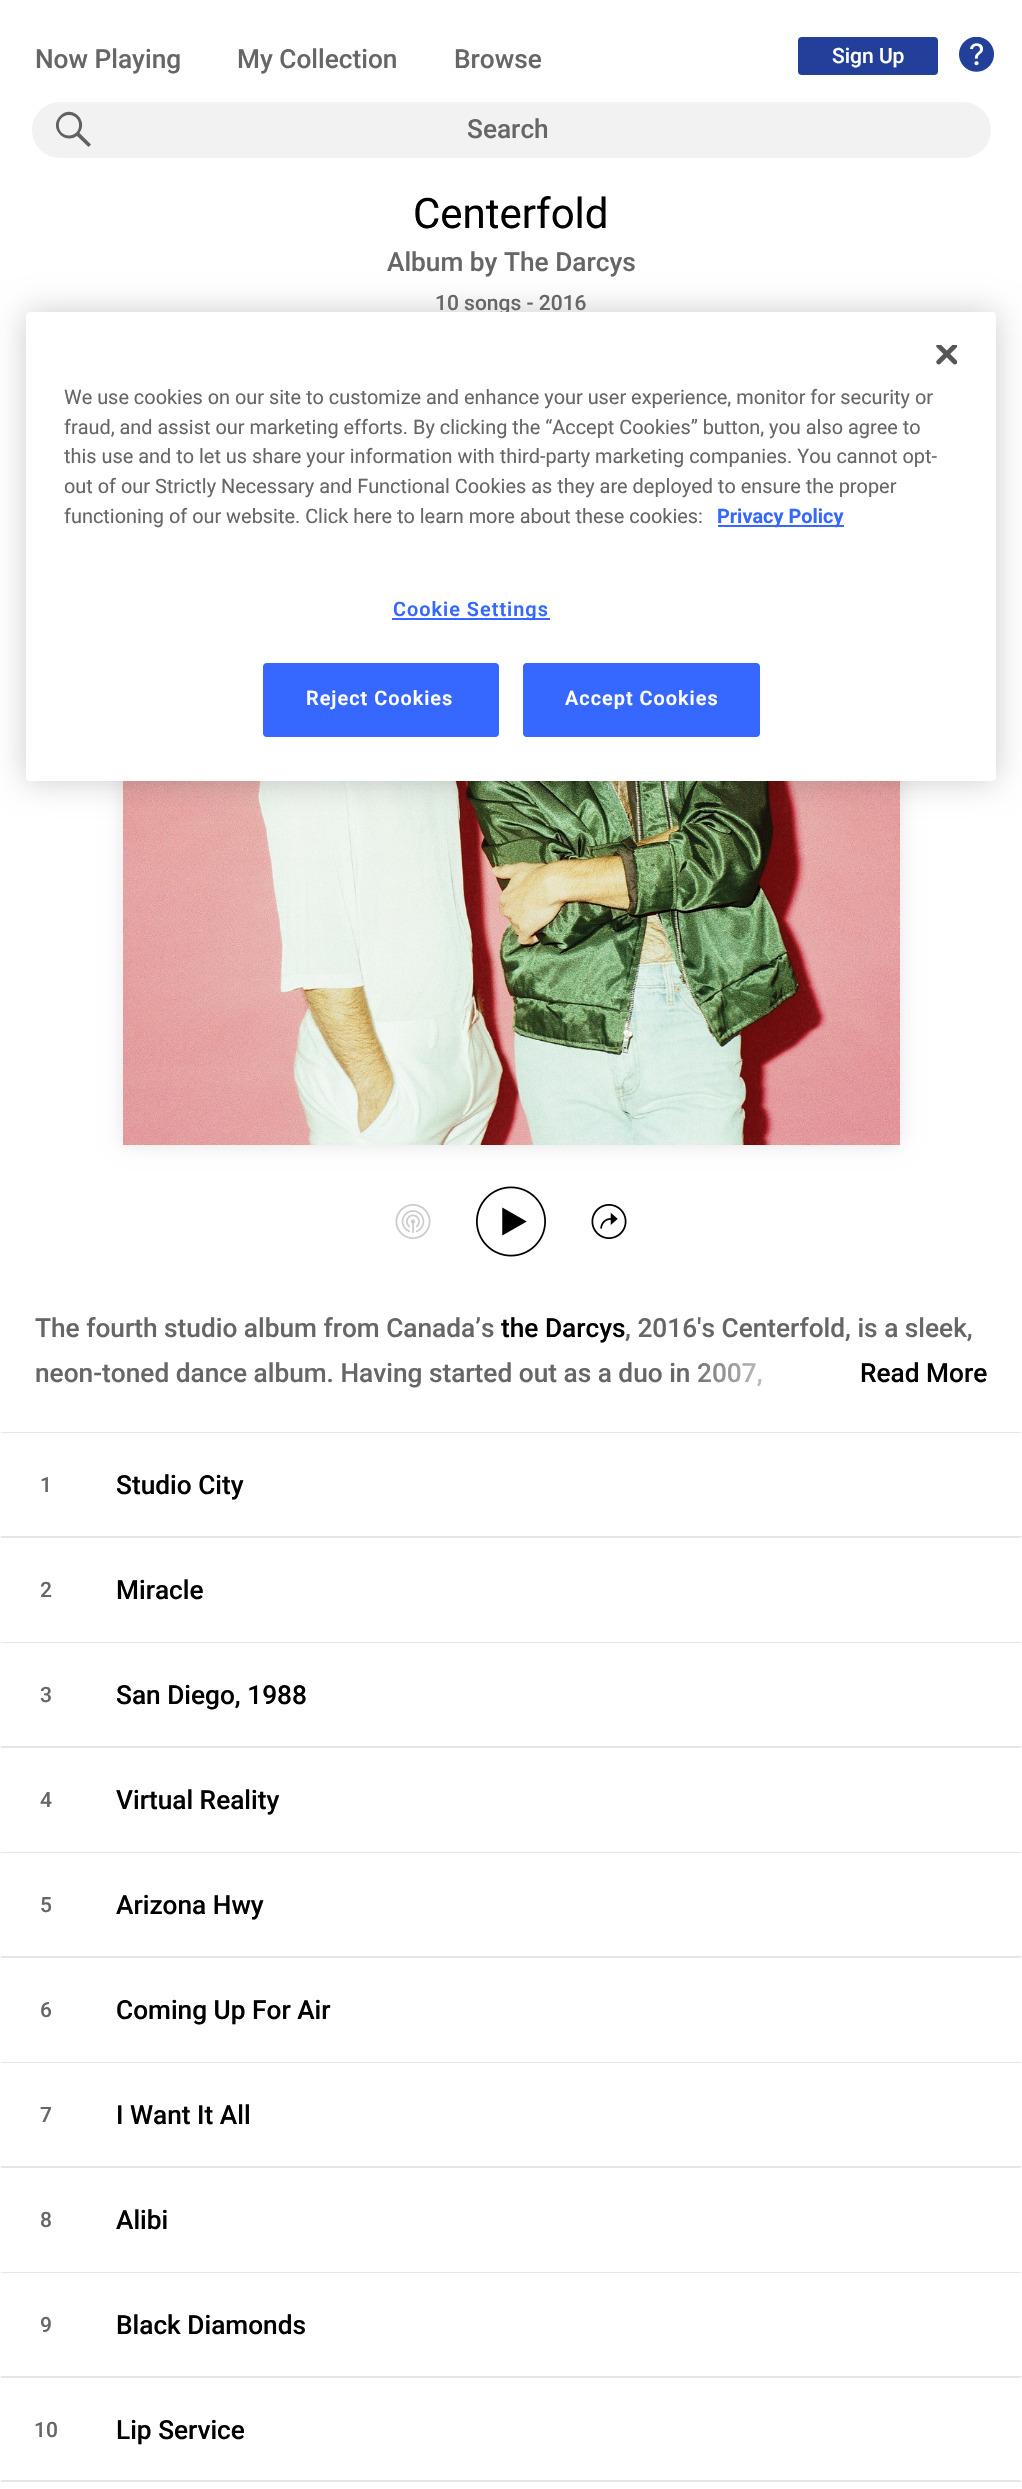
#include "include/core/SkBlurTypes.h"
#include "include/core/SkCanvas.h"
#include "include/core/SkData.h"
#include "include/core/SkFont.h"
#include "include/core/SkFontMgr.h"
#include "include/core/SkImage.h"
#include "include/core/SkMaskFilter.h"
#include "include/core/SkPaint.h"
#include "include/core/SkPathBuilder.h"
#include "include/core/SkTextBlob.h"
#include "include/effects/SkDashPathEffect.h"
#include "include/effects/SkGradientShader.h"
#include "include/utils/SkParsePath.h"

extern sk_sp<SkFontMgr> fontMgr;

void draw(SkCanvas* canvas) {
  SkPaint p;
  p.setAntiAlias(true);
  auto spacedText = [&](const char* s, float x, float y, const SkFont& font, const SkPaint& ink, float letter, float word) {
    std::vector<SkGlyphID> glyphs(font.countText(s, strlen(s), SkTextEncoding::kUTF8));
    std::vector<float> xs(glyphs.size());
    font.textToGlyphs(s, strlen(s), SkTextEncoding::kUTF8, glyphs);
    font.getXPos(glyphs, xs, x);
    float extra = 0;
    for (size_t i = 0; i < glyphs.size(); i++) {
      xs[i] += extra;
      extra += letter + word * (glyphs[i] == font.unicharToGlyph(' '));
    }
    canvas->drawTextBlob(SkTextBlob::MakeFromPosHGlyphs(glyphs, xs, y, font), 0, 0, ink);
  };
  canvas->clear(SK_ColorWHITE);
  p.setColor(SkColorSetRGB(34, 64, 153));
  canvas->drawRoundRect(SkRect::MakeLTRB(798, 37, 938, 75), 4, 4, p);
  canvas->drawImageRect(SkImages::DeferredFromEncodedData(SkData::MakeFromFileName("images/1.png")), SkRect::MakeLTRB(959, 37, 994, 72), SkSamplingOptions());
  p.setColor(SkColorSetRGB(242, 242, 242));
  canvas->drawRoundRect(SkRect::MakeLTRB(32, 102, 991, 158), 28, 28, p);
  p.setColor(SkColorSetRGB(97, 97, 97));
  canvas->drawPath(SkPathBuilder().moveTo(91, 144.5f).lineTo(79.5f, 133).cubicTo(89, 120.5f, 71.5f, 104, 60, 116).cubicTo(48.5f, 127.5f, 64, 145, 77, 136).lineTo(88.5f, 147).close().moveTo(69, 135.5f).cubicTo(55.5f, 135.5f, 55.5f, 115, 69, 115).cubicTo(82.5f, 115, 82.5f, 135.5f, 69, 135.5f).close().detach(), p);
  p.setColor(SkColorSetARGB(26, 0, 0, 0));
  p.setMaskFilter(SkMaskFilter::MakeBlur(kNormal_SkBlurStyle, 9));
  canvas->drawRect(SkRect::MakeLTRB(123, 368, 900, 1145), p);
  p.setMaskFilter(nullptr);
  canvas->drawImageRect(SkImages::DeferredFromEncodedData(SkData::MakeFromFileName("images/2.png")), SkRect::MakeLTRB(123, 781, 900, 1145), SkSamplingOptions());
  canvas->drawImageRect(SkImages::DeferredFromEncodedData(SkData::MakeFromFileName("images/3.png")), SkRect::MakeLTRB(395, 1204, 431, 1239), SkSamplingOptions());
  canvas->drawImageRect(SkImages::DeferredFromEncodedData(SkData::MakeFromFileName("images/4.png")), SkRect::MakeLTRB(476, 1186, 546, 1257), SkSamplingOptions());
  canvas->drawImageRect(SkImages::DeferredFromEncodedData(SkData::MakeFromFileName("images/5.png")), SkRect::MakeLTRB(591, 1204, 627, 1239), SkSamplingOptions());
  p.setColor(SkColorSetRGB(230, 230, 230));
  canvas->drawPath(SkPathBuilder().moveTo(0, 1432).lineTo(1022, 1432).lineTo(1020, 1433).lineTo(2, 1433).close().detach(), p);
  canvas->drawPath(SkPathBuilder().moveTo(0, 1536).lineTo(1022, 1536).lineTo(1020, 1538).lineTo(2, 1538).close().detach(), p);
  canvas->drawPath(SkPathBuilder().moveTo(0, 1642).lineTo(1022, 1642).lineTo(1020, 1643).lineTo(2, 1643).close().detach(), p);
  canvas->drawPath(SkPathBuilder().moveTo(0, 1746).lineTo(1022, 1746).lineTo(1020, 1748).lineTo(2, 1748).close().detach(), p);
  canvas->drawPath(SkPathBuilder().moveTo(0, 1852).lineTo(1022, 1852).lineTo(1020, 1853).lineTo(2, 1853).close().detach(), p);
  canvas->drawPath(SkPathBuilder().moveTo(0, 1956).lineTo(1022, 1956).lineTo(1020, 1958).lineTo(2, 1958).close().detach(), p);
  canvas->drawPath(SkPathBuilder().moveTo(0, 2062).lineTo(1022, 2062).lineTo(1020, 2063).lineTo(2, 2063).close().detach(), p);
  canvas->drawPath(SkPathBuilder().moveTo(0, 2166).lineTo(1022, 2166).lineTo(1020, 2168).lineTo(2, 2168).close().detach(), p);
  canvas->drawPath(SkPathBuilder().moveTo(0, 2272).lineTo(1022, 2272).lineTo(1020, 2273).lineTo(2, 2273).close().detach(), p);
  canvas->drawPath(SkPathBuilder().moveTo(0, 2376).lineTo(1022, 2376).lineTo(1020, 2378).lineTo(2, 2378).close().detach(), p);
  canvas->drawPath(SkPathBuilder().moveTo(1022, 2482).lineTo(0, 2482).lineTo(2, 2480).lineTo(1020, 2480).close().detach(), p);
  p.setColor(SkColorSetARGB(51, 0, 0, 0));
  p.setMaskFilter(SkMaskFilter::MakeBlur(kNormal_SkBlurStyle, 16));
  canvas->drawRoundRect(SkRect::MakeLTRB(26, 312, 996, 781), 4, 4, p);
  p.setMaskFilter(nullptr);
  SkFont font1(fontMgr->matchFamilyStyle("Roboto", SkFontStyle(500, SkFontStyle::kNormal_Width, SkFontStyle::kUpright_Slant)), 26.25f);
  font1.setSubpixel(true);
  p.setColor(SkColorSetRGB(102, 102, 102));
  canvas->drawString("Now Playing", 35, 68, font1, p);
  canvas->drawString("My Collection", 237, 68, font1, p);
  canvas->drawString("Browse", 454, 68, font1, p);
  SkFont font2(fontMgr->matchFamilyStyle("Roboto", SkFontStyle(500, SkFontStyle::kNormal_Width, SkFontStyle::kUpright_Slant)), 21);
  font2.setSubpixel(true);
  p.setColor(SK_ColorWHITE);
  canvas->drawString("Sign Up", 832, 63, font2, p);
  p.setColor(SkColorSetRGB(102, 102, 102));
  canvas->drawString("Search", 467, 138, font1, p);
  SkFont font3(fontMgr->matchFamilyStyle("Roboto", SkFontStyle::Normal()), 42);
  font3.setSubpixel(true);
  p.setColor(SK_ColorBLACK);
  canvas->drawString("Centerfold", 413, 228, font3, p);
  p.setColor(SkColorSetRGB(102, 102, 102));
  canvas->drawString("Album by The Darcys", 387, 271, font1, p);
  canvas->drawString("10 songs - 2016", 435, 310, font2, p);
  canvas->drawString("The fourth studio album from Canada’s", 35, 1337, font1, p);
  p.setColor(SK_ColorBLACK);
  canvas->drawString("the Darcys", 501, 1337, font1, p);
  p.setColor(SkColorSetRGB(102, 102, 102));
  canvas->drawString(", 2016′s Centerfold, is a sleek,", 625, 1337, font1, p);
  canvas->drawString("neon-toned dance album. Having started out as a duo in 2007,", 35, 1382, font1, p);
  {
    const SkColor colors[] = {SkColorSetARGB(0, 255, 255, 255), SK_ColorWHITE, SK_ColorWHITE};
    const float stops[] = {0, 0.45f, 1};
    const SkPoint ends[] = {{684, 1374}, {987, 1374}};
    p.setShader(SkGradientShader::MakeLinear(ends, colors, stops, 3, SkTileMode::kClamp));
    p.setAlpha(255);
  }
  canvas->drawRect(SkRect::MakeLTRB(687, 1363, 762, 1387), p);
  p.setShader(nullptr);
  p.setColor(SK_ColorBLACK);
  canvas->drawString("Read More", 860, 1382, font1, p);
  p.setColor(SkColorSetRGB(102, 102, 102));
  canvas->drawString("1", 40, 1492, font2, p);
  p.setColor(SK_ColorBLACK);
  canvas->drawString("Studio City", 116, 1494, font1, p);
  p.setColor(SkColorSetRGB(102, 102, 102));
  canvas->drawString("2", 40, 1597, font2, p);
  p.setColor(SK_ColorBLACK);
  canvas->drawString("Miracle", 116, 1599, font1, p);
  p.setColor(SkColorSetRGB(102, 102, 102));
  canvas->drawString("3", 40, 1702, font2, p);
  p.setColor(SK_ColorBLACK);
  canvas->drawString("San Diego, 1988", 116, 1704, font1, p);
  p.setColor(SkColorSetRGB(102, 102, 102));
  canvas->drawString("4", 40, 1807, font2, p);
  p.setColor(SK_ColorBLACK);
  canvas->drawString("Virtual Reality", 116, 1809, font1, p);
  p.setColor(SkColorSetRGB(102, 102, 102));
  canvas->drawString("5", 40, 1912, font2, p);
  p.setColor(SK_ColorBLACK);
  canvas->drawString("Arizona Hwy", 116, 1914, font1, p);
  p.setColor(SkColorSetRGB(102, 102, 102));
  canvas->drawString("6", 40, 2017, font2, p);
  p.setColor(SK_ColorBLACK);
  canvas->drawString("Coming Up For Air", 116, 2019, font1, p);
  p.setColor(SkColorSetRGB(102, 102, 102));
  canvas->drawString("7", 40, 2122, font2, p);
  p.setColor(SK_ColorBLACK);
  canvas->drawString("I Want It All", 116, 2124, font1, p);
  p.setColor(SkColorSetRGB(102, 102, 102));
  canvas->drawString("8", 40, 2227, font2, p);
  p.setColor(SK_ColorBLACK);
  canvas->drawString("Alibi", 116, 2229, font1, p);
  p.setColor(SkColorSetRGB(102, 102, 102));
  canvas->drawString("9", 40, 2332, font2, p);
  p.setColor(SK_ColorBLACK);
  canvas->drawString("Black Diamonds", 116, 2334, font1, p);
  p.setColor(SkColorSetRGB(102, 102, 102));
  canvas->drawString("10", 34, 2437, font2, p);
  p.setColor(SK_ColorBLACK);
  canvas->drawString("Lip Service", 116, 2439, font1, p);
  p.setColor(SK_ColorWHITE);
  canvas->drawRoundRect(SkRect::MakeLTRB(26, 312, 996, 781), 4, 4, p);
  canvas->drawImageRect(SkImages::DeferredFromEncodedData(SkData::MakeFromFileName("images/6.png")), SkRect::MakeLTRB(936, 345, 957, 365), SkSamplingOptions());
  SkFont font4(fontMgr->matchFamilyStyle("Roboto", SkFontStyle::Normal()), 19.9f);
  font4.setSubpixel(true);
  p.setColor(SkColorSetRGB(102, 102, 102));
  canvas->drawString("We use cookies on our site to customize and enhance your user experience, monitor for security or", 64, 404, font4, p);
  canvas->drawString("fraud, and assist our marketing efforts. By clicking the “Accept Cookies” button, you also agree to", 64, 434, font4, p);
  canvas->drawString("this use and to let us share your information with third-party marketing companies. You cannot opt-", 64, 463, font4, p);
  canvas->drawString("out of our Strictly Necessary and Functional Cookies as they are deployed to ensure the proper", 64, 493, font4, p);
  canvas->drawString("functioning of our website. Click here to learn more about these cookies:", 64, 523, font4, p);
  p.setColor(SkColorSetRGB(54, 104, 255));
  canvas->drawRect(SkRect::MakeLTRB(718, 525, 844, 527), p);
  SkFont font5(fontMgr->matchFamilyStyle("Roboto", SkFontStyle::Bold()), 19.9f);
  font5.setSubpixel(true);
  canvas->drawString("Privacy Policy", 717, 523, font5, p);
  canvas->drawRect(SkRect::MakeLTRB(392, 618, 550, 620), p);
  SkFont font6(fontMgr->matchFamilyStyle("Roboto", SkFontStyle(600, SkFontStyle::kNormal_Width, SkFontStyle::kUpright_Slant)), 19.9f);
  font6.setSubpixel(true);
  spacedText("Cookie Settings", 393, 616, font6, p, 1, 0);
  canvas->drawRoundRect(SkRect::MakeLTRB(264, 664, 498, 736), 3, 3, p);
  p.setStyle(SkPaint::kStroke_Style);
  p.setStrokeWidth(2);
  canvas->drawRoundRect(SkRect::MakeLTRB(264, 664, 498, 736), 3, 3, p);
  p.setStyle(SkPaint::kFill_Style);
  p.setColor(SK_ColorWHITE);
  spacedText("Reject Cookies", 306, 705, font6, p, 1, 0);
  p.setColor(SkColorSetRGB(54, 104, 255));
  canvas->drawRoundRect(SkRect::MakeLTRB(524, 664, 759, 736), 3, 3, p);
  p.setStyle(SkPaint::kStroke_Style);
  canvas->drawRoundRect(SkRect::MakeLTRB(524, 664, 759, 736), 3, 3, p);
  p.setStyle(SkPaint::kFill_Style);
  p.setColor(SK_ColorWHITE);
  spacedText("Accept Cookies", 565, 705, font6, p, 1, 0);
}
